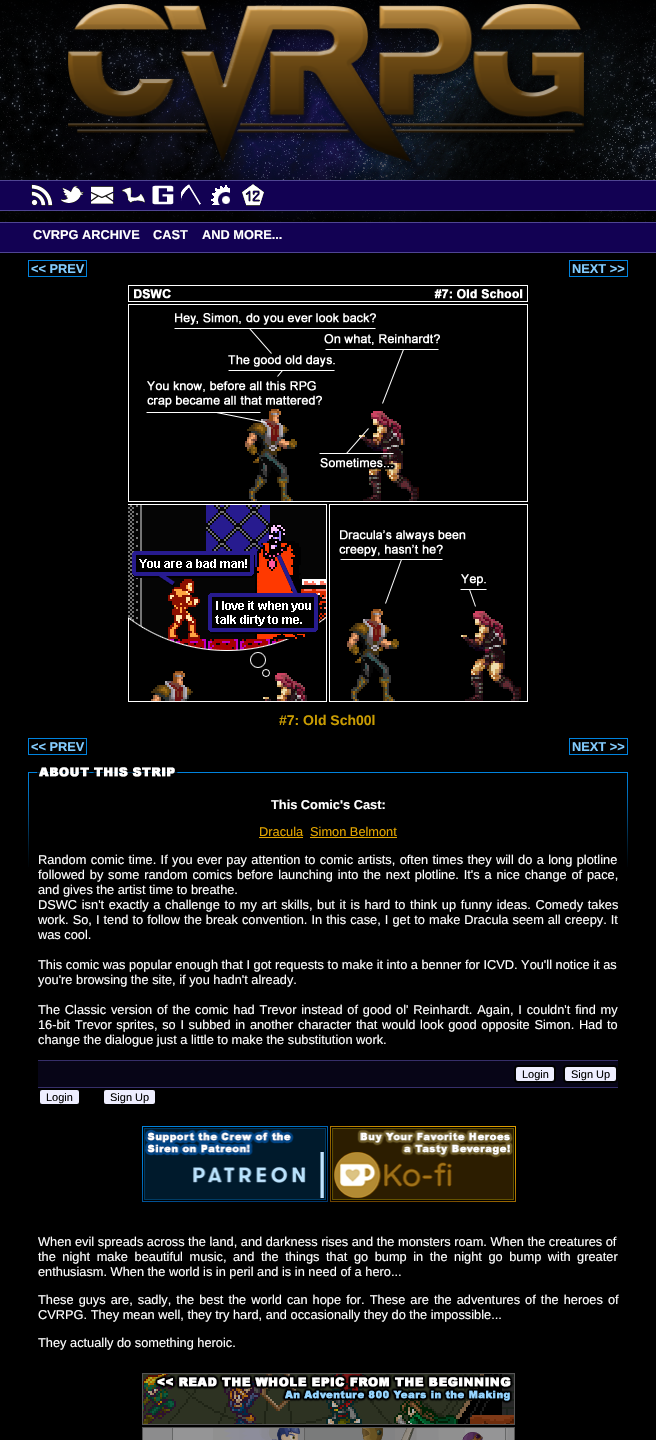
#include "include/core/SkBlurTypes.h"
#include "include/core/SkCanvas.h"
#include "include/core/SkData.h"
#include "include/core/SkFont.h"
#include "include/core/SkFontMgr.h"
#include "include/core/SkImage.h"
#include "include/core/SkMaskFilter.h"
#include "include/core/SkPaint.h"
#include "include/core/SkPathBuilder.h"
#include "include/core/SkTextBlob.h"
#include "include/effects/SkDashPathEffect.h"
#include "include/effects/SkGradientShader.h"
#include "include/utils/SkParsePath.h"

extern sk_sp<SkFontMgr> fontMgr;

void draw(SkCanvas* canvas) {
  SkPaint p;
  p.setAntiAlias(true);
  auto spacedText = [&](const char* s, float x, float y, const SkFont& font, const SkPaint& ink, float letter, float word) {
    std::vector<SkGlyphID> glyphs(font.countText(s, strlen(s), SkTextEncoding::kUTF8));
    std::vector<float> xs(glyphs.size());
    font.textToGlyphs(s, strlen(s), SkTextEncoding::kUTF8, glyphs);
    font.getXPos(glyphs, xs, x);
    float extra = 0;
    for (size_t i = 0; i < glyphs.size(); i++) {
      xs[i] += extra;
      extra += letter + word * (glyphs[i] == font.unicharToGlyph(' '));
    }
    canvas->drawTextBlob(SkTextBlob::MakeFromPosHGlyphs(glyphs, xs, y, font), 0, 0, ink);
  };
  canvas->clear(SK_ColorBLACK);
  canvas->drawImageRect(SkImages::DeferredFromEncodedData(SkData::MakeFromFileName("images/1.png")), SkRect::MakeLTRB(0, 0, 656, 222), SkSamplingOptions());
  canvas->drawImageRect(SkImages::DeferredFromEncodedData(SkData::MakeFromFileName("images/2.png")), SkRect::MakeLTRB(0, 180, 656, 253), SkSamplingOptions());
  canvas->drawImageRect(SkImages::DeferredFromEncodedData(SkData::MakeFromFileName("images/3.png")), SkRect::MakeLTRB(64, 4, 591, 169), SkSamplingOptions());
  canvas->drawImageRect(SkImages::DeferredFromEncodedData(SkData::MakeFromFileName("images/4.png")), SkRect::MakeLTRB(31, 184, 53, 206), SkSamplingOptions());
  canvas->drawImageRect(SkImages::DeferredFromEncodedData(SkData::MakeFromFileName("images/5.png")), SkRect::MakeLTRB(61, 186, 84, 203), SkSamplingOptions());
  canvas->drawImageRect(SkImages::DeferredFromEncodedData(SkData::MakeFromFileName("images/6.png")), SkRect::MakeLTRB(91, 186, 114, 204), SkSamplingOptions());
  canvas->drawImageRect(SkImages::DeferredFromEncodedData(SkData::MakeFromFileName("images/7.png")), SkRect::MakeLTRB(122, 187, 145, 203), SkSamplingOptions());
  canvas->drawImageRect(SkImages::DeferredFromEncodedData(SkData::MakeFromFileName("images/8.png")), SkRect::MakeLTRB(152, 185, 174, 205), SkSamplingOptions());
  canvas->drawImageRect(SkImages::DeferredFromEncodedData(SkData::MakeFromFileName("images/9.png")), SkRect::MakeLTRB(181, 184, 201, 205), SkSamplingOptions());
  canvas->drawImageRect(SkImages::DeferredFromEncodedData(SkData::MakeFromFileName("images/10.png")), SkRect::MakeLTRB(211, 185, 230, 205), SkSamplingOptions());
  canvas->drawImageRect(SkImages::DeferredFromEncodedData(SkData::MakeFromFileName("images/11.png")), SkRect::MakeLTRB(242, 184, 264, 206), SkSamplingOptions());
  p.setStyle(SkPaint::kStroke_Style);
  p.setStrokeWidth(1);
  p.setColor(SkColorSetRGB(0, 131, 222));
  canvas->drawRect(SkRect::MakeLTRB(28.5f, 260.5f, 86.5f, 276.5f), p);
  canvas->drawRect(SkRect::MakeLTRB(569.5f, 260.5f, 627.5f, 276.5f), p);
  canvas->drawImageRect(SkImages::DeferredFromEncodedData(SkData::MakeFromFileName("images/12.png")), SkRect::MakeLTRB(128, 285, 528, 702), SkSamplingOptions());
  canvas->drawRect(SkRect::MakeLTRB(28.5f, 738.5f, 86.5f, 754.5f), p);
  canvas->drawRect(SkRect::MakeLTRB(569.5f, 738.5f, 627.5f, 754.5f), p);
  canvas->drawImageRect(SkImages::DeferredFromEncodedData(SkData::MakeFromFileName("images/13.png")), SkRect::MakeLTRB(28, 767, 628, 867), SkSamplingOptions());
  p.setStyle(SkPaint::kFill_Style);
  p.setColor(SkColorSetRGB(228, 166, 0));
  canvas->drawRect(SkRect::MakeLTRB(259, 837, 303, 838), p);
  canvas->drawRect(SkRect::MakeLTRB(310, 837, 397, 838), p);
  p.setColor(SkColorSetRGB(7, 5, 23));
  canvas->drawRect(SkRect::MakeLTRB(38, 1061, 618, 1087), p);
  p.setColor(SkColorSetRGB(54, 47, 106));
  canvas->drawRect(SkRect::MakeLTRB(38, 1060, 618, 1061), p);
  canvas->drawRect(SkRect::MakeLTRB(38, 1087, 618, 1088), p);
  p.setColor(SkColorSetRGB(238, 238, 255));
  canvas->drawRoundRect(SkRect::MakeLTRB(515, 1066, 555, 1082), 3, 3, p);
  p.setStyle(SkPaint::kStroke_Style);
  p.setStrokeWidth(2);
  p.setColor(SK_ColorBLACK);
  canvas->drawRoundRect(SkRect::MakeLTRB(515, 1066, 555, 1082), 3, 3, p);
  p.setStyle(SkPaint::kFill_Style);
  p.setColor(SkColorSetRGB(238, 238, 255));
  canvas->drawRoundRect(SkRect::MakeLTRB(564, 1066, 617, 1082), 3, 3, p);
  p.setStyle(SkPaint::kStroke_Style);
  p.setColor(SK_ColorBLACK);
  canvas->drawRoundRect(SkRect::MakeLTRB(564, 1066, 617, 1082), 3, 3, p);
  p.setStyle(SkPaint::kFill_Style);
  p.setColor(SkColorSetRGB(238, 238, 255));
  canvas->drawRoundRect(SkRect::MakeLTRB(39, 1089, 80, 1105), 3, 3, p);
  p.setStyle(SkPaint::kStroke_Style);
  p.setColor(SK_ColorBLACK);
  canvas->drawRoundRect(SkRect::MakeLTRB(39, 1089, 80, 1105), 3, 3, p);
  p.setStyle(SkPaint::kFill_Style);
  p.setColor(SkColorSetRGB(238, 238, 255));
  canvas->drawRoundRect(SkRect::MakeLTRB(103, 1089, 156, 1105), 3, 3, p);
  p.setStyle(SkPaint::kStroke_Style);
  p.setColor(SK_ColorBLACK);
  canvas->drawRoundRect(SkRect::MakeLTRB(103, 1089, 156, 1105), 3, 3, p);
  canvas->drawImageRect(SkImages::DeferredFromEncodedData(SkData::MakeFromFileName("images/14.png")), SkRect::MakeLTRB(142, 1126, 328, 1202), SkSamplingOptions());
  canvas->drawImageRect(SkImages::DeferredFromEncodedData(SkData::MakeFromFileName("images/15.png")), SkRect::MakeLTRB(330, 1126, 516, 1202), SkSamplingOptions());
  canvas->drawImageRect(SkImages::DeferredFromEncodedData(SkData::MakeFromFileName("images/16.png")), SkRect::MakeLTRB(143, 1374, 514, 1424), SkSamplingOptions());
  p.setStrokeWidth(1);
  p.setColor(SkColorSetRGB(85, 85, 85));
  canvas->drawRect(SkRect::MakeLTRB(142.5f, 1373.5f, 514.5f, 1424.5f), p);
  canvas->drawImageRect(SkImages::DeferredFromEncodedData(SkData::MakeFromFileName("images/17.png")), SkRect::MakeLTRB(143, 1428, 514, 1440), SkSamplingOptions());
  canvas->drawRect(SkRect::MakeLTRB(142.5f, 1427.5f, 514.5f, 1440.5f), p);
  SkFont font1(fontMgr->matchFamilyStyle("Liberation Sans", SkFontStyle::Bold()), 12.8f);
  font1.setSubpixel(true);
  p.setStyle(SkPaint::kFill_Style);
  p.setColor(SK_ColorWHITE);
  canvas->drawString("CVRPG ARCHIVE", 33, 239, font1, p);
  canvas->drawString("CAST", 153, 239, font1, p);
  canvas->drawString("AND MORE...", 202, 239, font1, p);
  p.setColor(SkColorSetRGB(132, 205, 255));
  canvas->drawString("<< PREV", 31, 273, font1, p);
  canvas->drawString("NEXT >>", 572, 273, font1, p);
  SkFont font2(fontMgr->matchFamilyStyle("Liberation Sans", SkFontStyle::Bold()), 14);
  font2.setSubpixel(true);
  p.setColor(SkColorSetRGB(201, 156, 2));
  canvas->drawString("#7: Old Sch00l", 279, 725, font2, p);
  p.setColor(SkColorSetRGB(132, 205, 255));
  canvas->drawString("<< PREV", 31, 751, font1, p);
  canvas->drawString("NEXT >>", 572, 751, font1, p);
  p.setColor(SK_ColorWHITE);
  canvas->drawString("This Comic's Cast:", 271, 809, font1, p);
  SkFont font3(fontMgr->matchFamilyStyle("Liberation Sans", SkFontStyle::Normal()), 12.8f);
  font3.setSubpixel(true);
  p.setColor(SkColorSetRGB(228, 166, 0));
  canvas->drawString("Dracula", 259, 836, font3, p);
  canvas->drawString("Simon Belmont", 310, 836, font3, p);
  p.setColor(SK_ColorWHITE);
  spacedText("Random comic time. If you ever pay attention to comic artists, often times they will do a long plotline", 38, 864, font3, p, 0, 0.8f);
  spacedText("followed by some random comics before launching into the next plotline. It's a nice change of pace,", 38, 879, font3, p, 0, 1.25f);
  canvas->drawString("and gives the artist time to breathe.", 38, 894, font3, p);
  spacedText("DSWC isn't exactly a challenge to my art skills, but it is hard to think up funny ideas. Comedy takes", 38, 909, font3, p, 0, 1.1f);
  spacedText("work. So, I tend to follow the break convention. In this case, I get to make Dracula seem all creepy. It", 38, 924, font3, p, 0, 0.5f);
  canvas->drawString("was cool.", 38, 939, font3, p);
  canvas->drawString("This comic was popular enough that I got requests to make it into a benner for ICVD. You'll notice it as", 38, 969, font3, p);
  canvas->drawString("you're browsing the site, if you hadn't already.", 38, 984, font3, p);
  spacedText("The Classic version of the comic had Trevor instead of good ol' Reinhardt. Again, I couldn't find my", 38, 1014, font3, p, 0, 1.25f);
  spacedText("16-bit Trevor sprites, so I subbed in another character that would look good opposite Simon. Had to", 38, 1029, font3, p, 0, 1.1f);
  canvas->drawString("change the dialogue just a little to make the substitution work.", 38, 1044, font3, p);
  SkFont font4(fontMgr->matchFamilyStyle("Liberation Sans", SkFontStyle::Normal()), 11);
  font4.setSubpixel(true);
  p.setColor(SK_ColorBLACK);
  canvas->drawString("Login", 522, 1078, font4, p);
  canvas->drawString("Sign Up", 571, 1078, font4, p);
  canvas->drawString("Login", 46, 1101, font4, p);
  canvas->drawString("Sign Up", 110, 1101, font4, p);
  p.setColor(SK_ColorWHITE);
  canvas->drawString("When evil spreads across the land, and darkness rises and the monsters roam. When the creatures of", 38, 1246, font3, p);
  spacedText("the night make beautiful music, and the things that go bump in the night go bump with greater", 38, 1261, font3, p, 0, 3);
  canvas->drawString("enthusiasm. When the world is in peril and is in need of a hero...", 38, 1276, font3, p);
  spacedText("These guys are, sadly, the best the world can hope for. These are the adventures of the heroes of", 38, 1304, font3, p, 0, 1.5f);
  canvas->drawString("CVRPG. They mean well, they try hard, and occasionally they do the impossible...", 38, 1319, font3, p);
  canvas->drawString("They actually do something heroic.", 38, 1347, font3, p);
}
